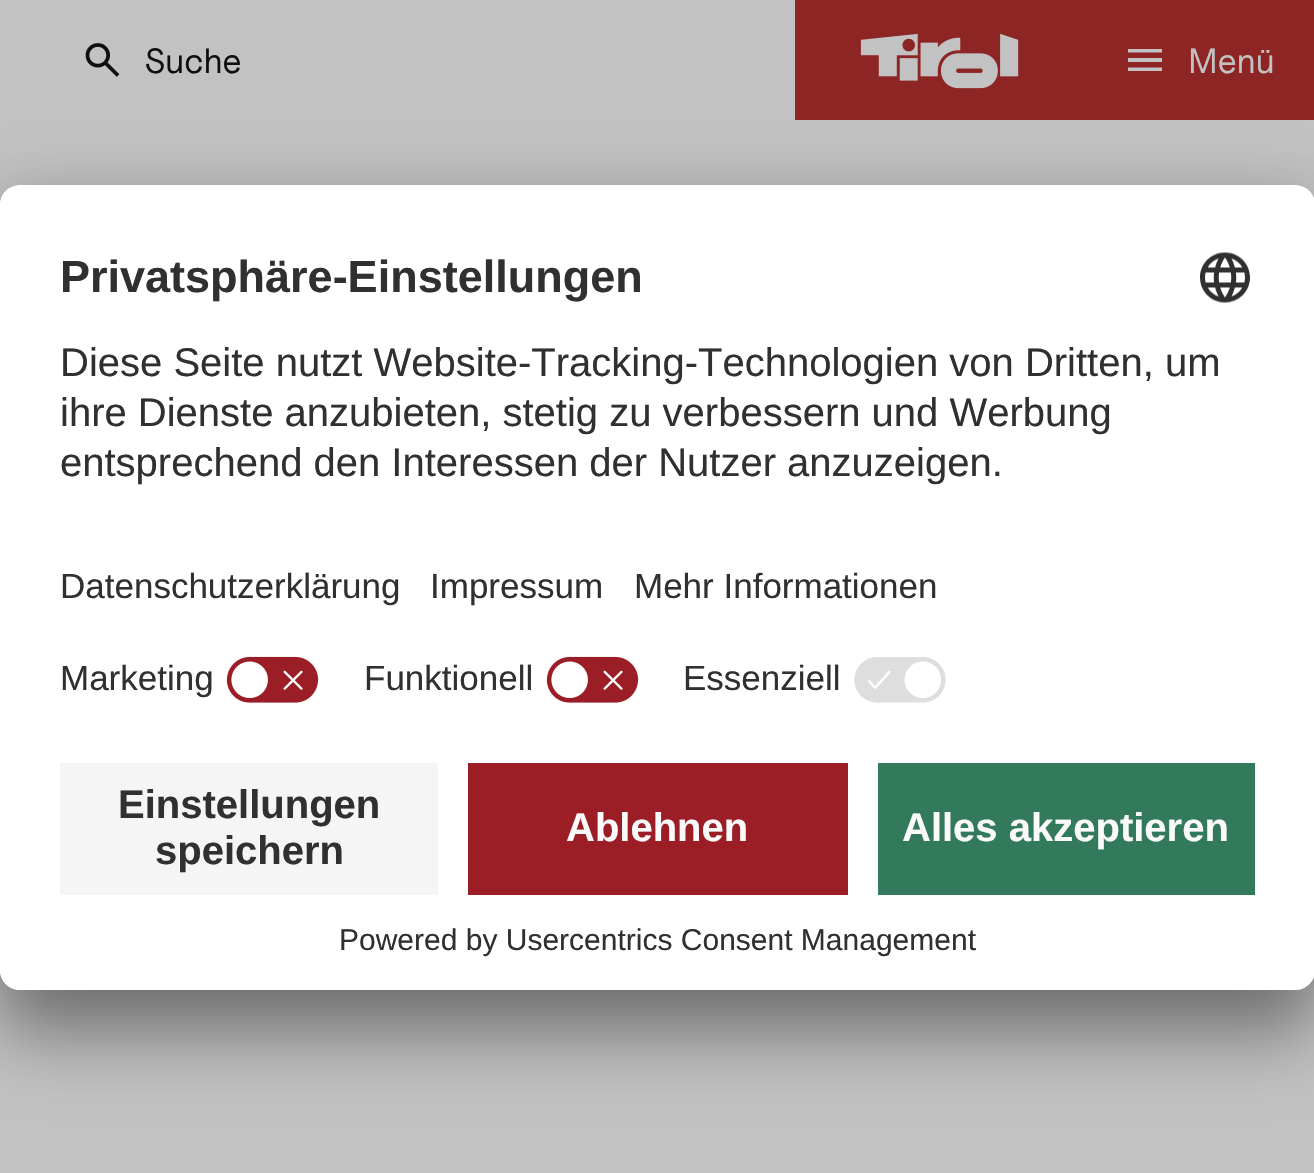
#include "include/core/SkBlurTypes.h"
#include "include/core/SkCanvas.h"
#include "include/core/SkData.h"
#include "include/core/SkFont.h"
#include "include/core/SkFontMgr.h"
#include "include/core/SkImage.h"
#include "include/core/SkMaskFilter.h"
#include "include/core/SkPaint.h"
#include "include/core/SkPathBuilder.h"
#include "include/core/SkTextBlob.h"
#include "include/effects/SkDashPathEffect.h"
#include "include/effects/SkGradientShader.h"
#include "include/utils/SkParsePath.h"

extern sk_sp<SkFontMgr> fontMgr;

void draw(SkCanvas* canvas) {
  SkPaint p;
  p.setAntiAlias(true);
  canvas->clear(SkColorSetRGB(194, 194, 194));
  canvas->drawImageRect(SkImages::DeferredFromEncodedData(SkData::MakeFromFileName("images/1.png")), SkRect::MakeLTRB(85, 43, 120, 77), SkSamplingOptions());
  p.setColor(SkColorSetRGB(142, 37, 37));
  canvas->drawRect(SkRect::MakeLTRB(795, 0, 1314, 120), p);
  canvas->drawImageRect(SkImages::DeferredFromEncodedData(SkData::MakeFromFileName("images/2.png")), SkRect::MakeLTRB(860, 33, 1019, 89), SkSamplingOptions());
  p.setColor(SkColorSetRGB(194, 194, 194));
  canvas->drawPath(SkPathBuilder().moveTo(1128, 71).lineTo(1128, 67.5f).lineTo(1162, 67.5f).lineTo(1162, 71).close().moveTo(1128, 62).lineTo(1128, 58).lineTo(1162, 58).lineTo(1162, 62).close().moveTo(1128, 52.5f).lineTo(1128, 49).lineTo(1162, 49).lineTo(1162, 52.5f).close().detach(), p);
  p.setColor(SkColorSetARGB(77, 0, 0, 0));
  p.setMaskFilter(SkMaskFilter::MakeBlur(kNormal_SkBlurStyle, 35));
  canvas->drawRoundRect(SkRect::MakeLTRB(0, 235, 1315, 1040), 20, 20, p);
  p.setMaskFilter(nullptr);
  p.setColor(SkColorSetARGB(56, 0, 0, 0));
  p.setMaskFilter(SkMaskFilter::MakeBlur(kNormal_SkBlurStyle, 32.5f));
  canvas->drawRoundRect(SkRect::MakeLTRB(0, 198, 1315, 1003), 20, 20, p);
  p.setMaskFilter(nullptr);
  p.setColor(SK_ColorWHITE);
  canvas->drawRoundRect(SkRect::MakeLTRB(0, 185, 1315, 990), 20, 20, p);
  canvas->save();
  canvas->clipPath(SkPathBuilder().moveTo(20, 185).lineTo(1295, 185).cubicTo(1306, 185, 1315, 194, 1315, 205).lineTo(1315, 970).cubicTo(1315, 981, 1306, 990, 1295, 990).lineTo(20, 990).cubicTo(9, 990, 0, 981, 0, 970).lineTo(0, 205).cubicTo(0, 194, 9, 185, 20, 185).close().detach(), true);
  canvas->clipPath(SkPathBuilder().moveTo(20, 185).lineTo(1295, 185).cubicTo(1306, 185, 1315, 194, 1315, 205).lineTo(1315, 743).lineTo(0, 743).lineTo(0, 205).cubicTo(0, 194, 9, 185, 20, 185).close().detach(), true);
  canvas->drawRect(SkRect::MakeLTRB(0, 188, 1314, 743), p);
  canvas->drawRect(SkRect::MakeLTRB(0, 188, 1314, 643), p);
  canvas->restore();
  canvas->drawImageRect(SkImages::DeferredFromEncodedData(SkData::MakeFromFileName("images/3.png")), SkRect::MakeLTRB(1200, 252, 1250, 303), SkSamplingOptions());
  canvas->drawImageRect(SkImages::DeferredFromEncodedData(SkData::MakeFromFileName("images/4.png")), SkRect::MakeLTRB(226, 656, 319, 703), SkSamplingOptions());
  canvas->drawImageRect(SkImages::DeferredFromEncodedData(SkData::MakeFromFileName("images/4.png")), SkRect::MakeLTRB(546, 656, 639, 703), SkSamplingOptions());
  canvas->drawImageRect(SkImages::DeferredFromEncodedData(SkData::MakeFromFileName("images/5.png")), SkRect::MakeLTRB(854, 657, 946, 703), SkSamplingOptions());
  canvas->drawPath(SkPathBuilder().moveTo(0, 743).lineTo(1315, 743).lineTo(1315, 970).cubicTo(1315, 981, 1306, 990, 1295, 990).lineTo(20, 990).cubicTo(9, 990, 0, 981, 0, 970).close().detach(), p);
  p.setColor(SkColorSetRGB(245, 245, 245));
  canvas->drawRect(SkRect::MakeLTRB(60, 763, 438, 895), p);
  p.setColor(SkColorSetRGB(155, 29, 38));
  canvas->drawRect(SkRect::MakeLTRB(468, 763, 848, 895), p);
  p.setColor(SkColorSetRGB(51, 122, 93));
  canvas->drawRect(SkRect::MakeLTRB(878, 763, 1255, 895), p);
  SkFont font1(fontMgr->matchFamilyStyle("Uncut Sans", SkFontStyle::Normal()), 35);
  font1.setSubpixel(true);
  p.setColor(SkColorSetRGB(15, 15, 15));
  canvas->drawString("Suche", 145, 73, font1, p);
  p.setColor(SkColorSetRGB(194, 194, 194));
  canvas->drawString("Menü", 1188, 73, font1, p);
  SkFont font2(fontMgr->matchFamilyStyle("Liberation Sans", SkFontStyle::Bold()), 45);
  font2.setSubpixel(true);
  p.setColor(SkColorSetRGB(48, 48, 48));
  canvas->drawString("Privatsphäre-Einstellungen", 60, 292, font2, p);
  SkFont font3(fontMgr->matchFamilyStyle("Liberation Sans", SkFontStyle::Normal()), 40);
  font3.setSubpixel(true);
  canvas->drawString("Diese Seite nutzt Website-Tracking-Technologien von Dritten, um", 60, 376, font3, p);
  canvas->drawString("ihre Dienste anzubieten, stetig zu verbessern und Werbung", 60, 426, font3, p);
  canvas->drawString("entsprechend den Interessen der Nutzer anzuzeigen.", 60, 476, font3, p);
  SkFont font4(fontMgr->matchFamilyStyle("Liberation Sans", SkFontStyle::Normal()), 35);
  font4.setSubpixel(true);
  canvas->drawString("Datenschutzerklärung", 60, 598, font4, p);
  canvas->drawString("Impressum", 430, 598, font4, p);
  canvas->drawString("Mehr Informationen", 634, 598, font4, p);
  canvas->drawString("Marketing", 60, 690, font4, p);
  canvas->drawString("Funktionell", 364, 690, font4, p);
  canvas->drawString("Essenziell", 683, 690, font4, p);
  SkFont font5(fontMgr->matchFamilyStyle("Liberation Sans", SkFontStyle::Bold()), 40);
  font5.setSubpixel(true);
  canvas->drawString("Einstellungen", 118, 818, font5, p);
  canvas->drawString("speichern", 155, 864, font5, p);
  p.setColor(SkColorSetRGB(250, 250, 250));
  canvas->drawString("Ablehnen", 566, 841, font5, p);
  canvas->drawString("Alles akzeptieren", 902, 841, font5, p);
  SkFont font6(fontMgr->matchFamilyStyle("Liberation Sans", SkFontStyle::Normal()), 30);
  font6.setSubpixel(true);
  p.setColor(SkColorSetRGB(48, 48, 48));
  canvas->drawString("Powered by Usercentrics Consent Management", 339, 950, font6, p);
}
